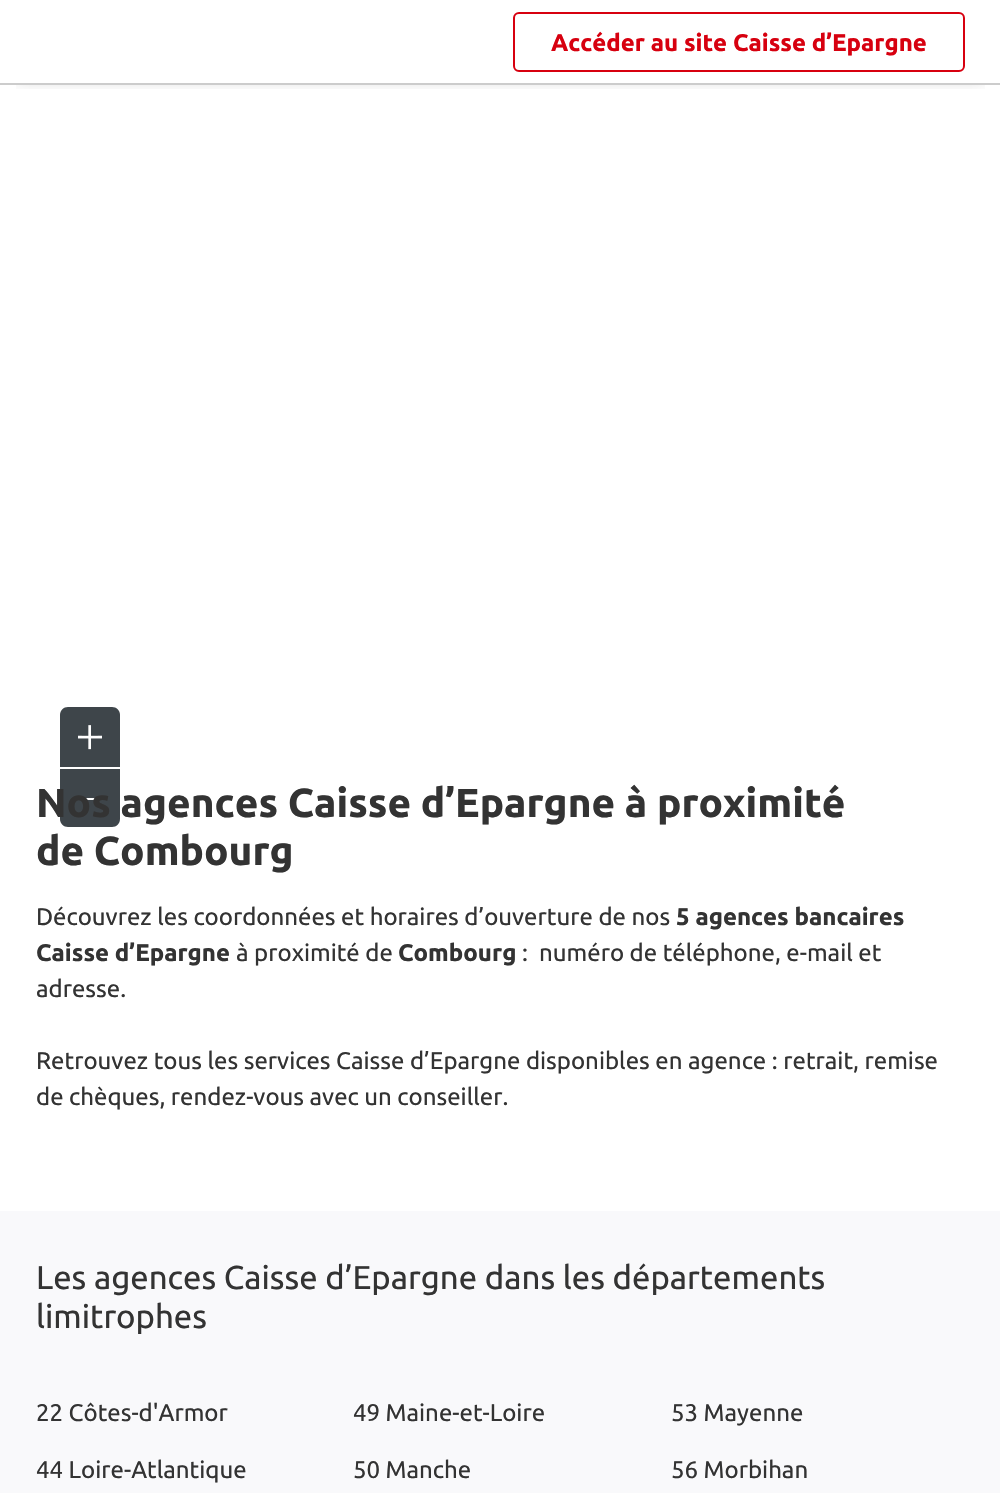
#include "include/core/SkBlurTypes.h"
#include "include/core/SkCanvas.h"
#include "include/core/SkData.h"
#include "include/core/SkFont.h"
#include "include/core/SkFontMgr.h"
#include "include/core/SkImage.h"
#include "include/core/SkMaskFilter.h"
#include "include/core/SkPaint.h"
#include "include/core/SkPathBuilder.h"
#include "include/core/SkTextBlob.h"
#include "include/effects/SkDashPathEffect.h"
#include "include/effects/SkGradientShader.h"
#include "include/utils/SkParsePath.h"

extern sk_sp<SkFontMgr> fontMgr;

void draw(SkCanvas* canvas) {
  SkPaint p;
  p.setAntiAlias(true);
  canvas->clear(SK_ColorWHITE);
  canvas->save();
  canvas->clipRect(SkRect::MakeLTRB(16, 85, 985, 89));
  p.setColor(SkColorSetARGB(77, 0, 0, 0));
  p.setMaskFilter(SkMaskFilter::MakeBlur(kNormal_SkBlurStyle, 8));
  canvas->drawRect(SkRect::MakeLTRB(17, 26, 984, 77), p);
  p.setMaskFilter(nullptr);
  canvas->restore();
  p.setColor(SkColorSetRGB(204, 204, 204));
  canvas->drawRect(SkRect::MakeLTRB(0, 83, 1000, 85), p);
  p.setStyle(SkPaint::kStroke_Style);
  p.setStrokeWidth(2);
  p.setColor(SkColorSetRGB(215, 0, 15));
  canvas->drawRoundRect(SkRect::MakeLTRB(514, 13, 964, 71), 5, 5, p);
  p.setStyle(SkPaint::kFill_Style);
  p.setColor(SkColorSetRGB(62, 69, 74));
  canvas->drawPath(SkPathBuilder().moveTo(68, 707).lineTo(112, 707).cubicTo(116.5f, 707, 120, 710.5f, 120, 715).lineTo(120, 767).lineTo(60, 767).lineTo(60, 715).cubicTo(60, 710.5f, 63.5f, 707, 68, 707).close().detach(), p);
  canvas->drawImageRect(SkImages::DeferredFromEncodedData(SkData::MakeFromFileName("images/1.png")), SkRect::MakeLTRB(78, 725, 102, 750), SkSamplingOptions());
  canvas->drawPath(SkPathBuilder().moveTo(60, 767).lineTo(120, 767).lineTo(120, 819).cubicTo(120, 823.5f, 116.5f, 827, 112, 827).lineTo(68, 827).cubicTo(63.5f, 827, 60, 823.5f, 60, 819).close().detach(), p);
  p.setColor(SK_ColorWHITE);
  canvas->drawRect(SkRect::MakeLTRB(60, 767, 120, 769), p);
  canvas->drawRect(SkRect::MakeLTRB(78, 798, 102, 800), p);
  p.setColor(SkColorSetRGB(249, 249, 251));
  canvas->drawRect(SkRect::MakeLTRB(0, 1211, 1000, 1493), p);
  SkFont font1(fontMgr->matchFamilyStyle("Ubuntu", SkFontStyle::Bold()), 24);
  font1.setSubpixel(true);
  p.setColor(SkColorSetRGB(215, 0, 15));
  canvas->drawString("Accéder au site Caisse d’Epargne", 551, 51, font1, p);
  SkFont font2(fontMgr->matchFamilyStyle("Ubuntu", SkFontStyle::Bold()), 40.5f);
  font2.setSubpixel(true);
  p.setColor(SkColorSetRGB(51, 51, 51));
  canvas->drawString("Nos agences Caisse d’Epargne à proximité", 36, 817, font2, p);
  canvas->drawString("de Combourg", 36, 865, font2, p);
  SkFont font3(fontMgr->matchFamilyStyle("Ubuntu", SkFontStyle::Normal()), 24);
  font3.setSubpixel(true);
  canvas->drawString("Découvrez les coordonnées et horaires d’ouverture de nos", 36, 925, font3, p);
  canvas->drawString("5 agences bancaires", 676, 925, font1, p);
  canvas->drawString("Caisse d’Epargne", 36, 961, font1, p);
  canvas->drawString("à proximité de", 236, 961, font3, p);
  canvas->drawString("Combourg", 398, 961, font1, p);
  canvas->drawString(":", 522, 961, font3, p);
  canvas->drawString("numéro de téléphone, e-mail et", 539, 961, font3, p);
  canvas->drawString("adresse.", 36, 997, font3, p);
  canvas->drawString("Retrouvez tous les services Caisse d’Epargne disponibles en agence : retrait, remise", 36, 1069, font3, p);
  canvas->drawString("de chèques, rendez-vous avec un conseiller.", 36, 1105, font3, p);
  SkFont font4(fontMgr->matchFamilyStyle("Ubuntu", SkFontStyle::Normal()), 33);
  font4.setSubpixel(true);
  canvas->drawString("Les agences Caisse d’Epargne dans les départements", 36, 1289, font4, p);
  canvas->drawString("limitrophes", 36, 1328, font4, p);
  canvas->drawString("22 Côtes-d'Armor", 36, 1421, font3, p);
  canvas->drawString("49 Maine-et-Loire", 353, 1421, font3, p);
  canvas->drawString("53 Mayenne", 671, 1421, font3, p);
  canvas->drawString("44 Loire-Atlantique", 36, 1478, font3, p);
  canvas->drawString("50 Manche", 353, 1478, font3, p);
  canvas->drawString("56 Morbihan", 671, 1478, font3, p);
}
